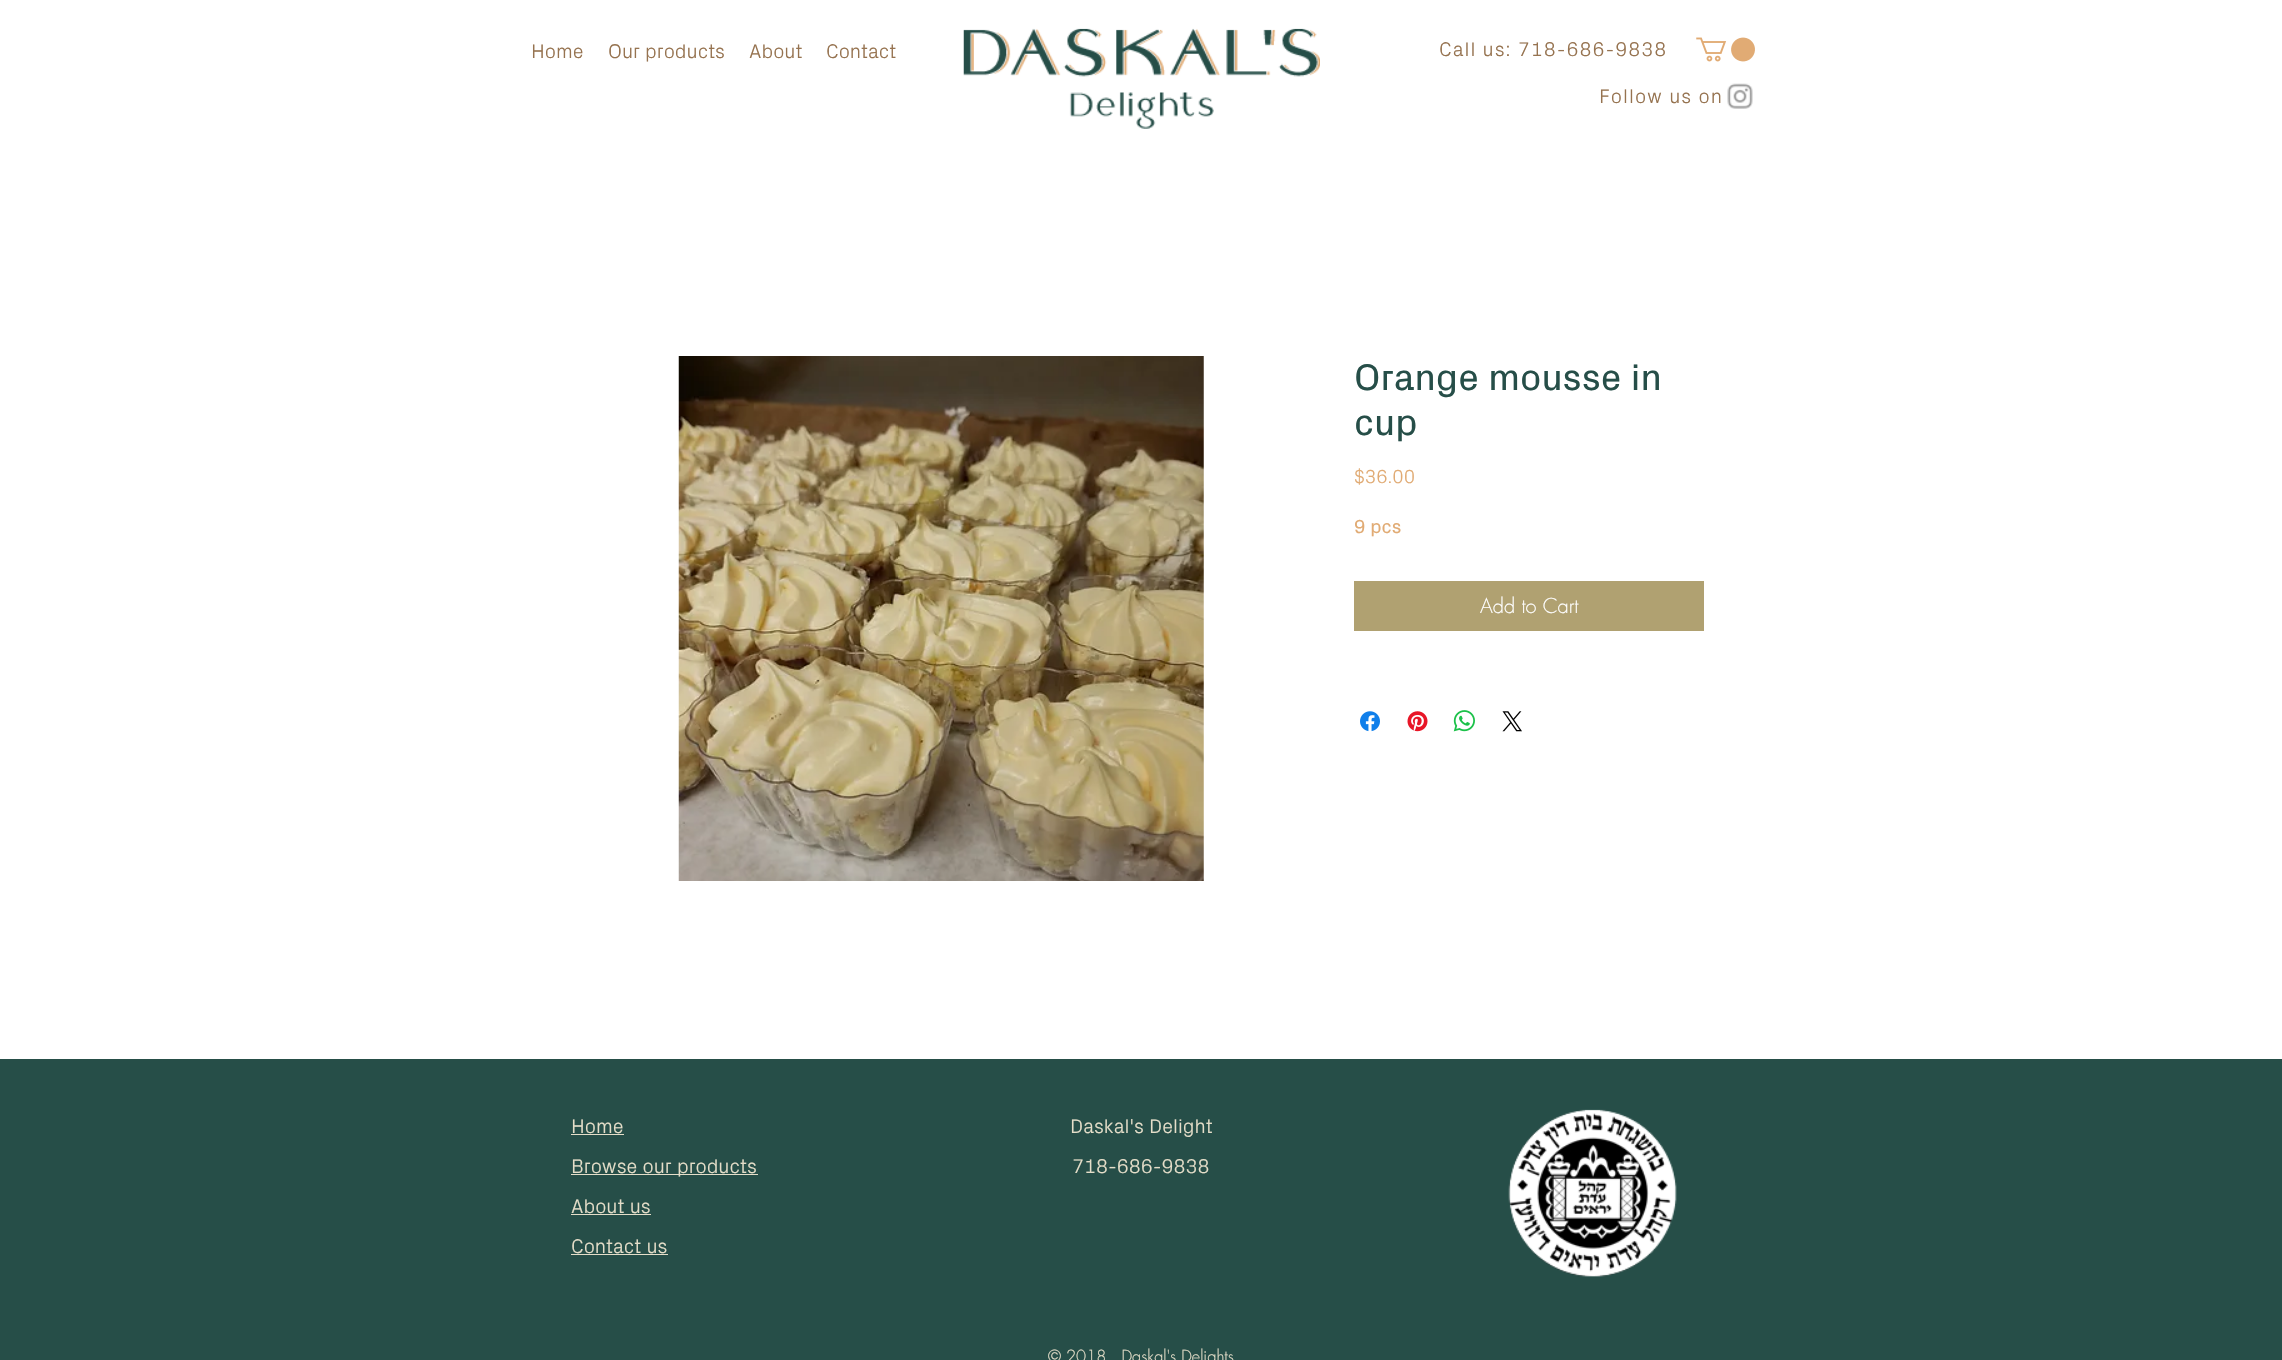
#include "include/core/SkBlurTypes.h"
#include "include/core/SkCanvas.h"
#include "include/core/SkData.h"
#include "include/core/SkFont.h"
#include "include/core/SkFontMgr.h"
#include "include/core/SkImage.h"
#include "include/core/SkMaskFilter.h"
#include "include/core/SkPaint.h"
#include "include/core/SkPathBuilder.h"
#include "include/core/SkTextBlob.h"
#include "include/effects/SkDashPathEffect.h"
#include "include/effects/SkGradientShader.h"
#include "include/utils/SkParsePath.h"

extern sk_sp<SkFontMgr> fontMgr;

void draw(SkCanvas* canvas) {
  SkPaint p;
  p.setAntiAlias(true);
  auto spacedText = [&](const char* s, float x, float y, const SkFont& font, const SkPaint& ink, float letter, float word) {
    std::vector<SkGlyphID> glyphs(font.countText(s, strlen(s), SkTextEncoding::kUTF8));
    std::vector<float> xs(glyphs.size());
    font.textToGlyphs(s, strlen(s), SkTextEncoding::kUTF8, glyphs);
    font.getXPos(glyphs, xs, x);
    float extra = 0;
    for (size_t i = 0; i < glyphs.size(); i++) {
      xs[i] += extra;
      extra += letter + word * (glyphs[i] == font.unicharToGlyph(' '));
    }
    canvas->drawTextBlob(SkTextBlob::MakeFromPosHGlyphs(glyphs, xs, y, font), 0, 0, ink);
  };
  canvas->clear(SK_ColorWHITE);
  canvas->drawImageRect(SkImages::DeferredFromEncodedData(SkData::MakeFromFileName("images/1.png")), SkRect::MakeLTRB(963, 28, 1320, 129), SkSamplingOptions());
  canvas->drawImageRect(SkImages::DeferredFromEncodedData(SkData::MakeFromFileName("images/2.png")), SkRect::MakeLTRB(1696, 37, 1755, 62), SkSamplingOptions());
  canvas->drawImageRect(SkImages::DeferredFromEncodedData(SkData::MakeFromFileName("images/3.png")), SkRect::MakeLTRB(1727, 83, 1753, 109), SkSamplingOptions());
  canvas->drawImageRect(SkImages::DeferredFromEncodedData(SkData::MakeFromFileName("images/4.png")), SkRect::MakeLTRB(678, 356, 1204, 881), SkSamplingOptions());
  p.setColor(SkColorSetRGB(176, 161, 113));
  canvas->drawRect(SkRect::MakeLTRB(1354, 581, 1704, 631), p);
  canvas->drawImageRect(SkImages::DeferredFromEncodedData(SkData::MakeFromFileName("images/5.png")), SkRect::MakeLTRB(1360, 711, 1380, 732), SkSamplingOptions());
  canvas->drawImageRect(SkImages::DeferredFromEncodedData(SkData::MakeFromFileName("images/6.png")), SkRect::MakeLTRB(1407, 711, 1428, 732), SkSamplingOptions());
  canvas->drawImageRect(SkImages::DeferredFromEncodedData(SkData::MakeFromFileName("images/7.png")), SkRect::MakeLTRB(1453, 710, 1475, 732), SkSamplingOptions());
  canvas->drawImageRect(SkImages::DeferredFromEncodedData(SkData::MakeFromFileName("images/8.png")), SkRect::MakeLTRB(1502, 711, 1522, 732), SkSamplingOptions());
  p.setColor(SkColorSetRGB(38, 78, 72));
  canvas->drawRect(SkRect::MakeLTRB(0, 1059, 2282, 1360), p);
  p.setColor(SkColorSetRGB(229, 222, 201));
  canvas->drawRect(SkRect::MakeLTRB(571, 1134, 624, 1135), p);
  canvas->drawRect(SkRect::MakeLTRB(571, 1174, 758, 1175), p);
  canvas->drawRect(SkRect::MakeLTRB(571, 1214, 651, 1215), p);
  canvas->drawRect(SkRect::MakeLTRB(571, 1254, 668, 1255), p);
  canvas->drawImageRect(SkImages::DeferredFromEncodedData(SkData::MakeFromFileName("images/9.png")), SkRect::MakeLTRB(1508, 1109, 1677, 1277), SkSamplingOptions());
  SkFont font1(fontMgr->matchFamilyStyle("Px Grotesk", SkFontStyle(300, SkFontStyle::kNormal_Width, SkFontStyle::kUpright_Slant)), 20);
  font1.setSubpixel(true);
  p.setColor(SkColorSetRGB(150, 115, 80));
  canvas->drawString("Home", 531, 58, font1, p);
  canvas->drawString("Our products", 608, 58, font1, p);
  canvas->drawString("About", 749, 58, font1, p);
  canvas->drawString("Contact", 826, 58, font1, p);
  spacedText("Call us: 718-686-9838", 1439, 56, font1, p, 1, 0);
  spacedText("Follow us on", 1599, 103, font1, p, 1, 0);
  SkFont font2(fontMgr->matchFamilyStyle("Px Grotesk", SkFontStyle::Normal()), 37.5f);
  font2.setSubpixel(true);
  p.setColor(SkColorSetRGB(38, 78, 72));
  canvas->drawString("Orange mousse in", 1354, 390, font2, p);
  canvas->drawString("cup", 1354, 435, font2, p);
  SkFont font3(fontMgr->matchFamilyStyle("Px Grotesk", SkFontStyle(300, SkFontStyle::kNormal_Width, SkFontStyle::kUpright_Slant)), 19);
  font3.setSubpixel(true);
  p.setColor(SkColorSetRGB(225, 171, 116));
  canvas->drawString("$36.00", 1354, 483, font3, p);
  SkFont font4(fontMgr->matchFamilyStyle("Px Grotesk", SkFontStyle::Normal()), 19);
  font4.setSubpixel(true);
  canvas->drawString("9 pcs", 1354, 533, font4, p);
  SkFont font5(fontMgr->matchFamilyStyle("futura", SkFontStyle(300, SkFontStyle::kNormal_Width, SkFontStyle::kUpright_Slant)), 20);
  font5.setSubpixel(true);
  p.setColor(SK_ColorWHITE);
  canvas->drawString("Add to Cart", 1480, 613, font5, p);
  p.setColor(SkColorSetRGB(229, 222, 201));
  canvas->drawString("Home", 571, 1133, font1, p);
  canvas->drawString("Browse our products", 571, 1173, font1, p);
  canvas->drawString("About us", 571, 1213, font1, p);
  canvas->drawString("Contact us", 571, 1253, font1, p);
  canvas->drawString("Daskal's Delight", 1070, 1133, font1, p);
  canvas->drawString("718-686-9838", 1072, 1173, font1, p);
  SkFont font6(fontMgr->matchFamilyStyle("futura", SkFontStyle(300, SkFontStyle::kNormal_Width, SkFontStyle::kUpright_Slant)), 16.25f);
  font6.setSubpixel(true);
  canvas->drawString("© 2018,  Daskal's Delights", 1048, 1362, font6, p);
}
